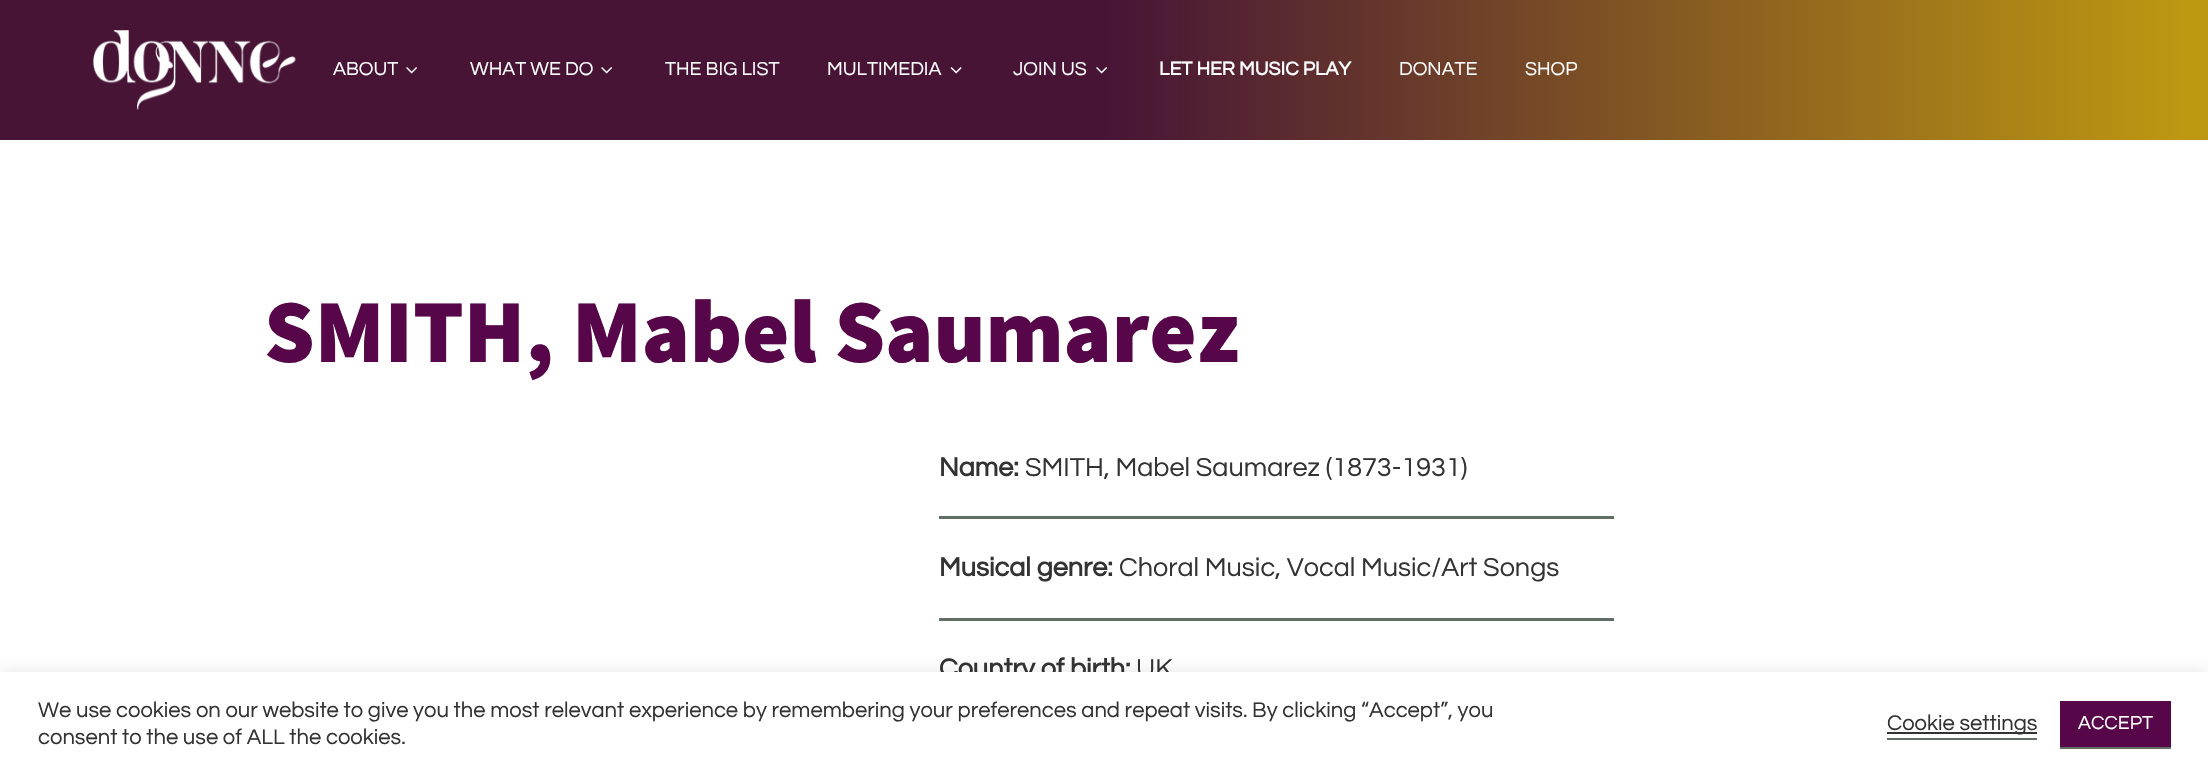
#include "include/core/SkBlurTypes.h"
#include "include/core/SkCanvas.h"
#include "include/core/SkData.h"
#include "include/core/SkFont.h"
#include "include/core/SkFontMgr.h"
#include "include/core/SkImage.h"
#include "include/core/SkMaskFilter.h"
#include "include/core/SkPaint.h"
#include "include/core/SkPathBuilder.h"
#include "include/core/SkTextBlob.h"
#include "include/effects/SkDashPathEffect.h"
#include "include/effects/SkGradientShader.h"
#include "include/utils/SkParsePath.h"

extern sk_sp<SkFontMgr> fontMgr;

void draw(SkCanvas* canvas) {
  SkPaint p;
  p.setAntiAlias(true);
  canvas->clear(SK_ColorWHITE);
  {
    const SkColor colors[] = {SkColorSetRGB(71, 20, 54), SkColorSetRGB(71, 20, 54), SkColorSetRGB(189, 152, 17), SkColorSetRGB(189, 152, 17)};
    const float stops[] = {0, 0.5f, 0.99f, 1};
    const SkPoint ends[] = {{0, 70}, {2208, 70}};
    p.setShader(SkGradientShader::MakeLinear(ends, colors, stops, 4, SkTileMode::kClamp));
    p.setAlpha(255);
  }
  canvas->drawRect(SkRect::MakeLTRB(0, 0, 2208, 140), p);
  canvas->drawImageRect(SkImages::DeferredFromEncodedData(SkData::MakeFromFileName("images/1.png")), SkRect::MakeLTRB(93, 30, 296, 110), SkSamplingOptions());
  canvas->drawImageRect(SkImages::DeferredFromEncodedData(SkData::MakeFromFileName("images/2.png")), SkRect::MakeLTRB(406, 67, 417, 74), SkSamplingOptions());
  canvas->drawImageRect(SkImages::DeferredFromEncodedData(SkData::MakeFromFileName("images/2.png")), SkRect::MakeLTRB(601, 67, 612, 74), SkSamplingOptions());
  canvas->drawImageRect(SkImages::DeferredFromEncodedData(SkData::MakeFromFileName("images/3.png")), SkRect::MakeLTRB(950, 67, 962, 74), SkSamplingOptions());
  canvas->drawImageRect(SkImages::DeferredFromEncodedData(SkData::MakeFromFileName("images/2.png")), SkRect::MakeLTRB(1096, 67, 1107, 74), SkSamplingOptions());
  p.setShader(nullptr);
  p.setColor(SkColorSetRGB(97, 110, 99));
  canvas->drawRect(SkRect::MakeLTRB(939, 516, 1614, 519), p);
  canvas->drawRect(SkRect::MakeLTRB(939, 618, 1614, 621), p);
  p.setColor(SkColorSetARGB(77, 172, 171, 171));
  p.setMaskFilter(SkMaskFilter::MakeBlur(kNormal_SkBlurStyle, 7.5f));
  canvas->drawRect(SkRect::MakeLTRB(0, 671, 2208, 776), p);
  p.setMaskFilter(nullptr);
  SkFont font1(fontMgr->matchFamilyStyle("Questrial", SkFontStyle::Normal()), 19.5f);
  font1.setSubpixel(true);
  p.setColor(SK_ColorWHITE);
  canvas->drawString("ABOUT", 333, 75, font1, p);
  canvas->drawString("WHAT WE DO", 470, 75, font1, p);
  canvas->drawString("THE BIG LIST", 665, 75, font1, p);
  canvas->drawString("MULTIMEDIA", 827, 75, font1, p);
  canvas->drawString("JOIN US", 1013, 75, font1, p);
  SkFont font2(fontMgr->matchFamilyStyle("Questrial", SkFontStyle::Bold()), 19.5f);
  font2.setSubpixel(true);
  canvas->drawString("LET HER MUSIC PLAY", 1159, 75, font2, p);
  canvas->drawString("DONATE", 1399, 75, font1, p);
  canvas->drawString("SHOP", 1525, 75, font1, p);
  SkFont font3(fontMgr->matchFamilyStyle("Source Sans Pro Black", SkFontStyle(900, SkFontStyle::kNormal_Width, SkFontStyle::kUpright_Slant)), 90);
  font3.setSubpixel(true);
  p.setColor(SkColorSetRGB(87, 6, 73));
  canvas->drawString("SMITH, Mabel Saumarez", 264, 362, font3, p);
  SkFont font4(fontMgr->matchFamilyStyle("Questrial", SkFontStyle::Bold()), 27);
  font4.setSubpixel(true);
  p.setColor(SkColorSetRGB(51, 51, 51));
  canvas->drawString("Name:", 939, 476, font4, p);
  SkFont font5(fontMgr->matchFamilyStyle("Questrial", SkFontStyle::Normal()), 27);
  font5.setSubpixel(true);
  canvas->drawString("SMITH, Mabel Saumarez (1873-1931)", 1025, 476, font5, p);
  canvas->drawString("Musical genre:", 939, 576, font4, p);
  canvas->drawString("Choral Music, Vocal Music/Art Songs", 1119, 576, font5, p);
  canvas->drawString("Country of birth:", 939, 677, font4, p);
  canvas->drawString("UK", 1136, 677, font5, p);
  p.setColor(SK_ColorWHITE);
  canvas->drawRect(SkRect::MakeLTRB(0, 672, 2208, 777), p);
  SkFont font6(fontMgr->matchFamilyStyle("Questrial", SkFontStyle::Normal()), 22);
  font6.setSubpixel(true);
  p.setColor(SkColorSetRGB(51, 51, 51));
  canvas->drawString("We use cookies on our website to give you the most relevant experience by remembering your preferences and repeat visits. By clicking “Accept”, you", 38, 717, font6, p);
  canvas->drawString("consent to the use of ALL the cookies.", 38, 744, font6, p);
  p.setColor(SkColorSetRGB(97, 110, 99));
  canvas->drawRect(SkRect::MakeLTRB(1887, 738, 2037, 740), p);
  p.setColor(SkColorSetRGB(51, 51, 51));
  canvas->drawRect(SkRect::MakeLTRB(1887, 732, 2037, 734), p);
  canvas->drawString("Cookie settings", 1887, 730, font6, p);
  p.setColor(SkColorSetRGB(87, 6, 73));
  canvas->drawRect(SkRect::MakeLTRB(2060, 701, 2171, 747), p);
  p.setColor(SkColorSetRGB(97, 110, 99));
  canvas->drawRect(SkRect::MakeLTRB(2060, 747, 2171, 749), p);
  p.setColor(SK_ColorWHITE);
  canvas->drawString("ACCEPT", 2078, 729, font1, p);
}
